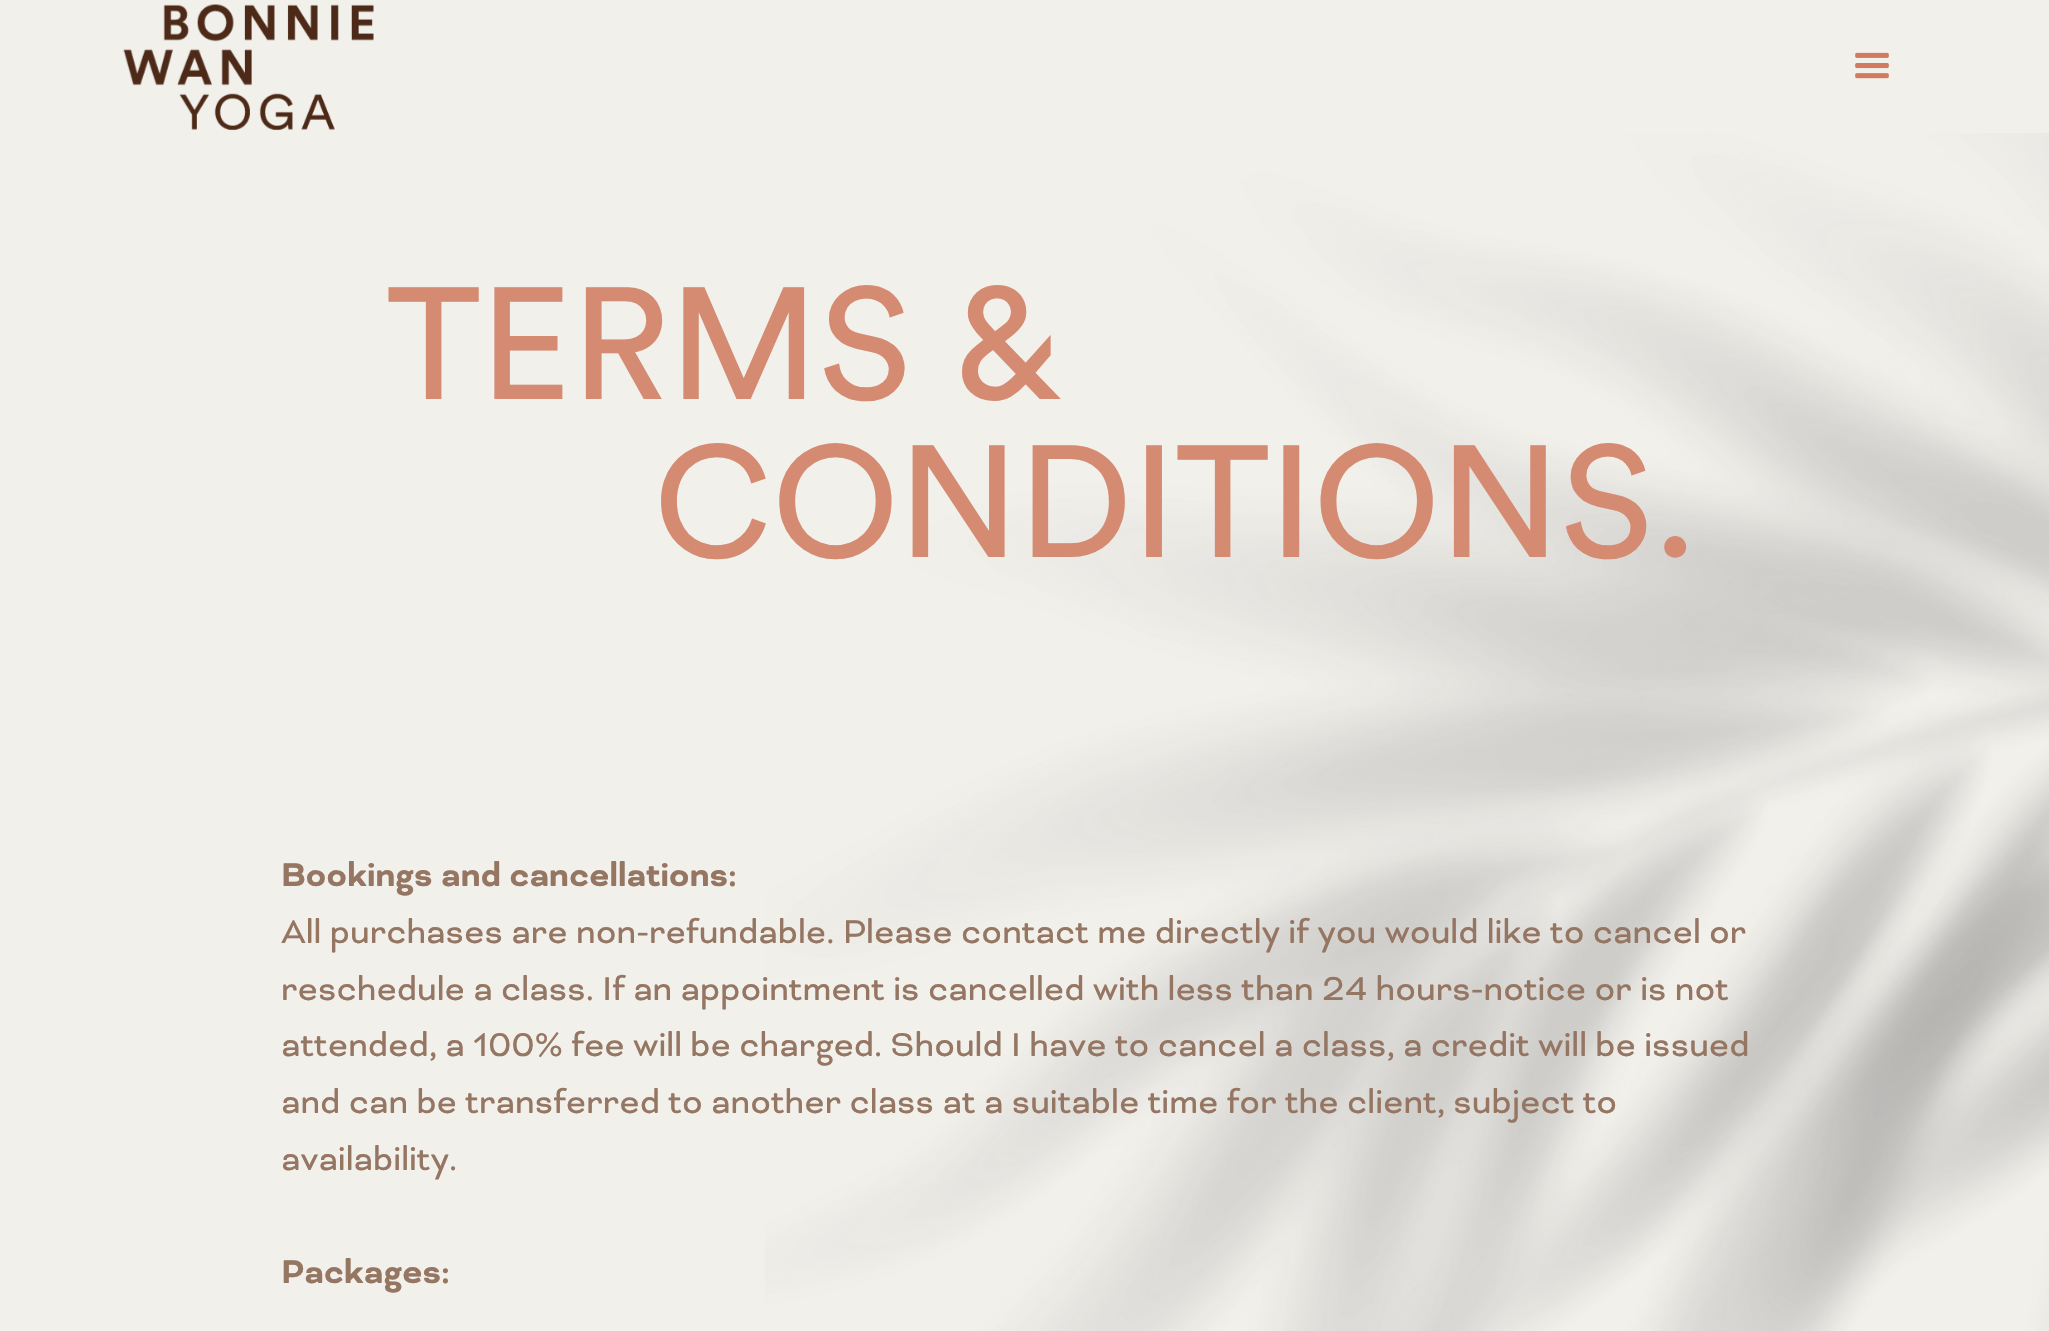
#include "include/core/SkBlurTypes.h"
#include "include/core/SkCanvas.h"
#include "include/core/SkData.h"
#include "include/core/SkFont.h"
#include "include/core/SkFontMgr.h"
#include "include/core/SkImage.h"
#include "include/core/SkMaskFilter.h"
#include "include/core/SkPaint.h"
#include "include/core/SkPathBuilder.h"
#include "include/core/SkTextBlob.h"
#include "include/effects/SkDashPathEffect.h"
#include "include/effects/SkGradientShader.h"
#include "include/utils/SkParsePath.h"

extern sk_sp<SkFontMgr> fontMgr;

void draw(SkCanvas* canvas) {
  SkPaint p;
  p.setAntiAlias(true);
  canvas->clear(SkColorSetRGB(242, 240, 235));
  canvas->drawImageRect(SkImages::DeferredFromEncodedData(SkData::MakeFromFileName("images/1.png")), SkRect::MakeLTRB(765, 133, 2049, 1331), SkSamplingOptions());
  canvas->drawImageRect(SkImages::DeferredFromEncodedData(SkData::MakeFromFileName("images/2.png")), SkRect::MakeLTRB(123, 4, 374, 131), SkSamplingOptions());
  canvas->drawImageRect(SkImages::DeferredFromEncodedData(SkData::MakeFromFileName("images/3.png")), SkRect::MakeLTRB(1855, 52, 1889, 79), SkSamplingOptions());
  SkFont font1(fontMgr->matchFamilyStyle("Circular", SkFontStyle::Normal()), 157.5f);
  font1.setSubpixel(true);
  p.setColor(SkColorSetRGB(213, 139, 114));
  canvas->drawString("TERMS &", 387, 399, font1, p);
  canvas->drawString("CONDITIONS.", 654, 557, font1, p);
  SkFont font2(fontMgr->matchFamilyStyle("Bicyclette", SkFontStyle::Bold()), 37.8f);
  font2.setSubpixel(true);
  p.setColor(SkColorSetRGB(149, 118, 99));
  canvas->drawString("Bookings and cancellations:", 281, 886, font2, p);
  SkFont font3(fontMgr->matchFamilyStyle("Bicyclette", SkFontStyle::Normal()), 37.8f);
  font3.setSubpixel(true);
  canvas->drawString("All purchases are non-refundable. Please contact me directly if you would like to cancel or", 281, 943, font3, p);
  canvas->drawString("reschedule a class. If an appointment is cancelled with less than 24 hours-notice or is not", 281, 1000, font3, p);
  canvas->drawString("attended, a 100% fee will be charged. Should I have to cancel a class, a credit will be issued", 281, 1056, font3, p);
  canvas->drawString("and can be transferred to another class at a suitable time for the client, subject to", 281, 1113, font3, p);
  canvas->drawString("availability.", 281, 1170, font3, p);
  canvas->drawString("Packages:", 281, 1283, font2, p);
}
